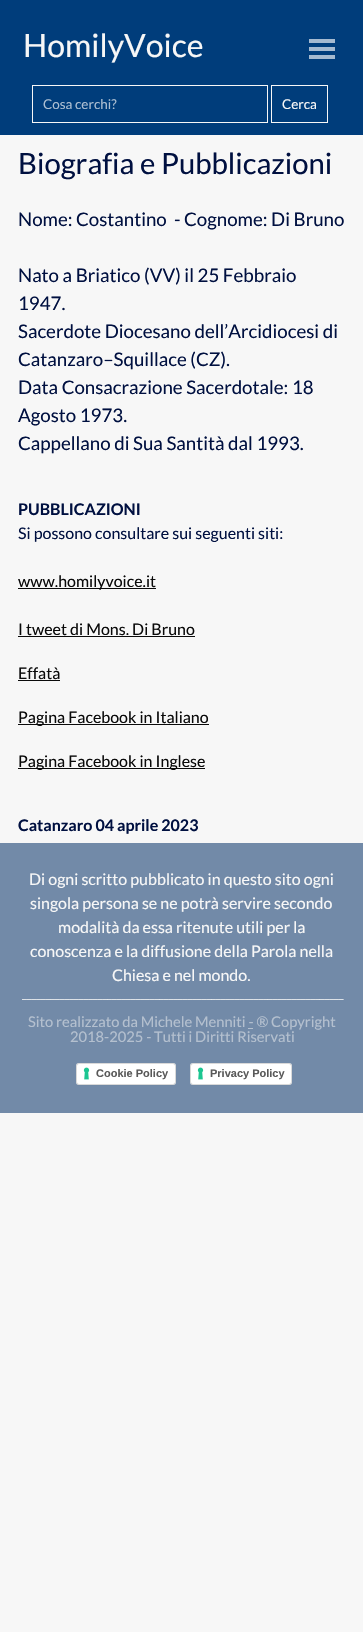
#include "include/core/SkBlurTypes.h"
#include "include/core/SkCanvas.h"
#include "include/core/SkData.h"
#include "include/core/SkFont.h"
#include "include/core/SkFontMgr.h"
#include "include/core/SkImage.h"
#include "include/core/SkMaskFilter.h"
#include "include/core/SkPaint.h"
#include "include/core/SkPathBuilder.h"
#include "include/core/SkTextBlob.h"
#include "include/effects/SkDashPathEffect.h"
#include "include/effects/SkGradientShader.h"
#include "include/utils/SkParsePath.h"

extern sk_sp<SkFontMgr> fontMgr;

void draw(SkCanvas* canvas) {
  SkPaint p;
  p.setAntiAlias(true);
  canvas->clear(SkColorSetRGB(247, 247, 247));
  p.setColor(SkColorSetRGB(0, 61, 123));
  canvas->drawRect(SkRect::MakeLTRB(0, 0, 363, 135), p);
  p.setColor(SkColorSetRGB(165, 186, 208));
  canvas->drawRect(SkRect::MakeLTRB(309, 39, 335, 43), p);
  canvas->drawRect(SkRect::MakeLTRB(309, 47, 335, 51), p);
  canvas->drawRect(SkRect::MakeLTRB(309, 55, 335, 59), p);
  p.setStyle(SkPaint::kStroke_Style);
  p.setStrokeWidth(1);
  p.setColor(SkColorSetRGB(247, 247, 247));
  canvas->drawRect(SkRect::MakeLTRB(32.5f, 85.5f, 267.5f, 122.5f), p);
  canvas->drawRect(SkRect::MakeLTRB(271.5f, 85.5f, 327.5f, 122.5f), p);
  p.setStyle(SkPaint::kFill_Style);
  p.setColor(SkColorSetRGB(10, 10, 10));
  canvas->drawRect(SkRect::MakeLTRB(18, 588, 156, 589), p);
  canvas->drawRect(SkRect::MakeLTRB(18, 636, 195, 637), p);
  canvas->drawRect(SkRect::MakeLTRB(18, 680, 60, 681), p);
  canvas->drawRect(SkRect::MakeLTRB(18, 724, 209, 725), p);
  canvas->drawRect(SkRect::MakeLTRB(18, 768, 205, 769), p);
  p.setColor(SkColorSetRGB(114, 138, 168));
  canvas->drawRect(SkRect::MakeLTRB(0, 843, 363, 1113), p);
  p.setColor(SkColorSetRGB(180, 192, 207));
  canvas->drawRect(SkRect::MakeLTRB(248, 1028, 253, 1029), p);
  p.setColor(SkColorSetARGB(38, 0, 0, 0));
  p.setMaskFilter(SkMaskFilter::MakeBlur(kNormal_SkBlurStyle, 0.5f));
  canvas->drawRoundRect(SkRect::MakeLTRB(77, 1065, 175, 1085), 2, 2, p);
  p.setMaskFilter(nullptr);
  p.setColor(SK_ColorWHITE);
  canvas->drawRoundRect(SkRect::MakeLTRB(76, 1063, 176, 1085), 3, 3, p);
  canvas->drawImageRect(SkImages::DeferredFromEncodedData(SkData::MakeFromFileName("images/1.png")), SkRect::MakeLTRB(83, 1067, 90, 1080), SkSamplingOptions());
  p.setStyle(SkPaint::kStroke_Style);
  p.setColor(SkColorSetARGB(38, 0, 0, 0));
  canvas->drawRoundRect(SkRect::MakeLTRB(76.5f, 1063.5f, 175.5f, 1084.5f), 2.5f, 2.5f, p);
  p.setStyle(SkPaint::kFill_Style);
  p.setMaskFilter(SkMaskFilter::MakeBlur(kNormal_SkBlurStyle, 0.5f));
  canvas->drawRoundRect(SkRect::MakeLTRB(191, 1065, 291, 1085), 2, 2, p);
  p.setMaskFilter(nullptr);
  p.setColor(SK_ColorWHITE);
  canvas->drawRoundRect(SkRect::MakeLTRB(190, 1063, 292, 1085), 3, 3, p);
  canvas->drawImageRect(SkImages::DeferredFromEncodedData(SkData::MakeFromFileName("images/1.png")), SkRect::MakeLTRB(197, 1067, 204, 1080), SkSamplingOptions());
  p.setStyle(SkPaint::kStroke_Style);
  p.setColor(SkColorSetARGB(38, 0, 0, 0));
  canvas->drawRoundRect(SkRect::MakeLTRB(190.5f, 1063.5f, 291.5f, 1084.5f), 2.5f, 2.5f, p);
  SkFont font1(fontMgr->matchFamilyStyle("Lato", SkFontStyle::Normal()), 32);
  font1.setSubpixel(true);
  p.setStyle(SkPaint::kFill_Style);
  p.setColor(SkColorSetRGB(247, 247, 247));
  canvas->drawString("HomilyVoice", 23, 57, font1, p);
  SkFont font2(fontMgr->matchFamilyStyle("Lato", SkFontStyle::Normal()), 13.5f);
  font2.setSubpixel(true);
  p.setColor(SkColorSetRGB(173, 191, 210));
  canvas->drawString("Cosa cerchi?", 43, 109, font2, p);
  p.setColor(SkColorSetRGB(247, 247, 247));
  canvas->drawString("Cerca", 282, 109, font2, p);
  SkFont font3(fontMgr->matchFamilyStyle("Lato", SkFontStyle::Normal()), 29.25f);
  font3.setSubpixel(true);
  p.setColor(SkColorSetRGB(0, 16, 64));
  canvas->drawString("Biografia e Pubblicazioni", 18, 174, font3, p);
  SkFont font4(fontMgr->matchFamilyStyle("Lato", SkFontStyle::Normal()), 18.7f);
  font4.setSubpixel(true);
  canvas->drawString("Nome: Costantino  - Cognome: Di Bruno", 18, 226, font4, p);
  canvas->drawString("Nato a Briatico (VV) il 25 Febbraio", 18, 282, font4, p);
  canvas->drawString("1947.", 18, 310, font4, p);
  canvas->drawString("Sacerdote Diocesano dell’Arcidiocesi di", 18, 338, font4, p);
  canvas->drawString("Catanzaro–Squillace (CZ).", 18, 366, font4, p);
  canvas->drawString("Data Consacrazione Sacerdotale: 18", 18, 394, font4, p);
  canvas->drawString("Agosto 1973.", 18, 422, font4, p);
  canvas->drawString("Cappellano di Sua Santità dal 1993.", 18, 450, font4, p);
  SkFont font5(fontMgr->matchFamilyStyle("Lato", SkFontStyle::Bold()), 16);
  font5.setSubpixel(true);
  canvas->drawString("PUBBLICAZIONI", 18, 515, font5, p);
  SkFont font6(fontMgr->matchFamilyStyle("Lato", SkFontStyle::Normal()), 16);
  font6.setSubpixel(true);
  canvas->drawString("Si possono consultare sui seguenti siti:", 18, 539, font6, p);
  p.setColor(SkColorSetRGB(10, 10, 10));
  canvas->drawString("www.homilyvoice.it", 18, 587, font6, p);
  canvas->drawString("I tweet di Mons. Di Bruno", 18, 635, font6, p);
  canvas->drawString("Effatà", 18, 679, font6, p);
  canvas->drawString("Pagina Facebook in Italiano", 18, 723, font6, p);
  canvas->drawString("Pagina Facebook in Inglese", 18, 767, font6, p);
  p.setColor(SkColorSetRGB(0, 16, 64));
  canvas->drawString("Catanzaro 04 aprile 2023", 18, 831, font5, p);
  p.setColor(SkColorSetRGB(247, 247, 247));
  canvas->drawString("Di ogni scritto pubblicato in questo sito ogni", 29, 885, font6, p);
  canvas->drawString("singola persona se ne potrà servire secondo", 30, 909, font6, p);
  canvas->drawString("modalità da essa ritenute utili per la", 58, 933, font6, p);
  canvas->drawString("conoscenza e la diffusione della Parola nella", 30, 957, font6, p);
  canvas->drawString("Chiesa e nel mondo.", 112, 981, font6, p);
  SkFont font7(fontMgr->matchFamilyStyle("Lato", SkFontStyle::Normal()), 12);
  font7.setSubpixel(true);
  canvas->drawString("____________________________________________________________________", 22, 998, font7, p);
  SkFont font8(fontMgr->matchFamilyStyle("Lato", SkFontStyle::Normal()), 14.7f);
  font8.setSubpixel(true);
  p.setColor(SkColorSetRGB(180, 192, 207));
  canvas->drawString("Sito realizzato da Michele Menniti - ® Copyright", 28, 1027, font8, p);
  canvas->drawString("2018-2025 - Tutti i Diritti Riservati", 70, 1042, font8, p);
  SkFont font9(fontMgr->matchFamilyStyle("Liberation Sans", SkFontStyle::Bold()), 11);
  font9.setSubpixel(true);
  p.setColor(SkColorSetRGB(89, 89, 89));
  canvas->drawString("Cookie Policy", 96, 1077, font9, p);
  canvas->drawString("Privacy Policy", 210, 1077, font9, p);
}
